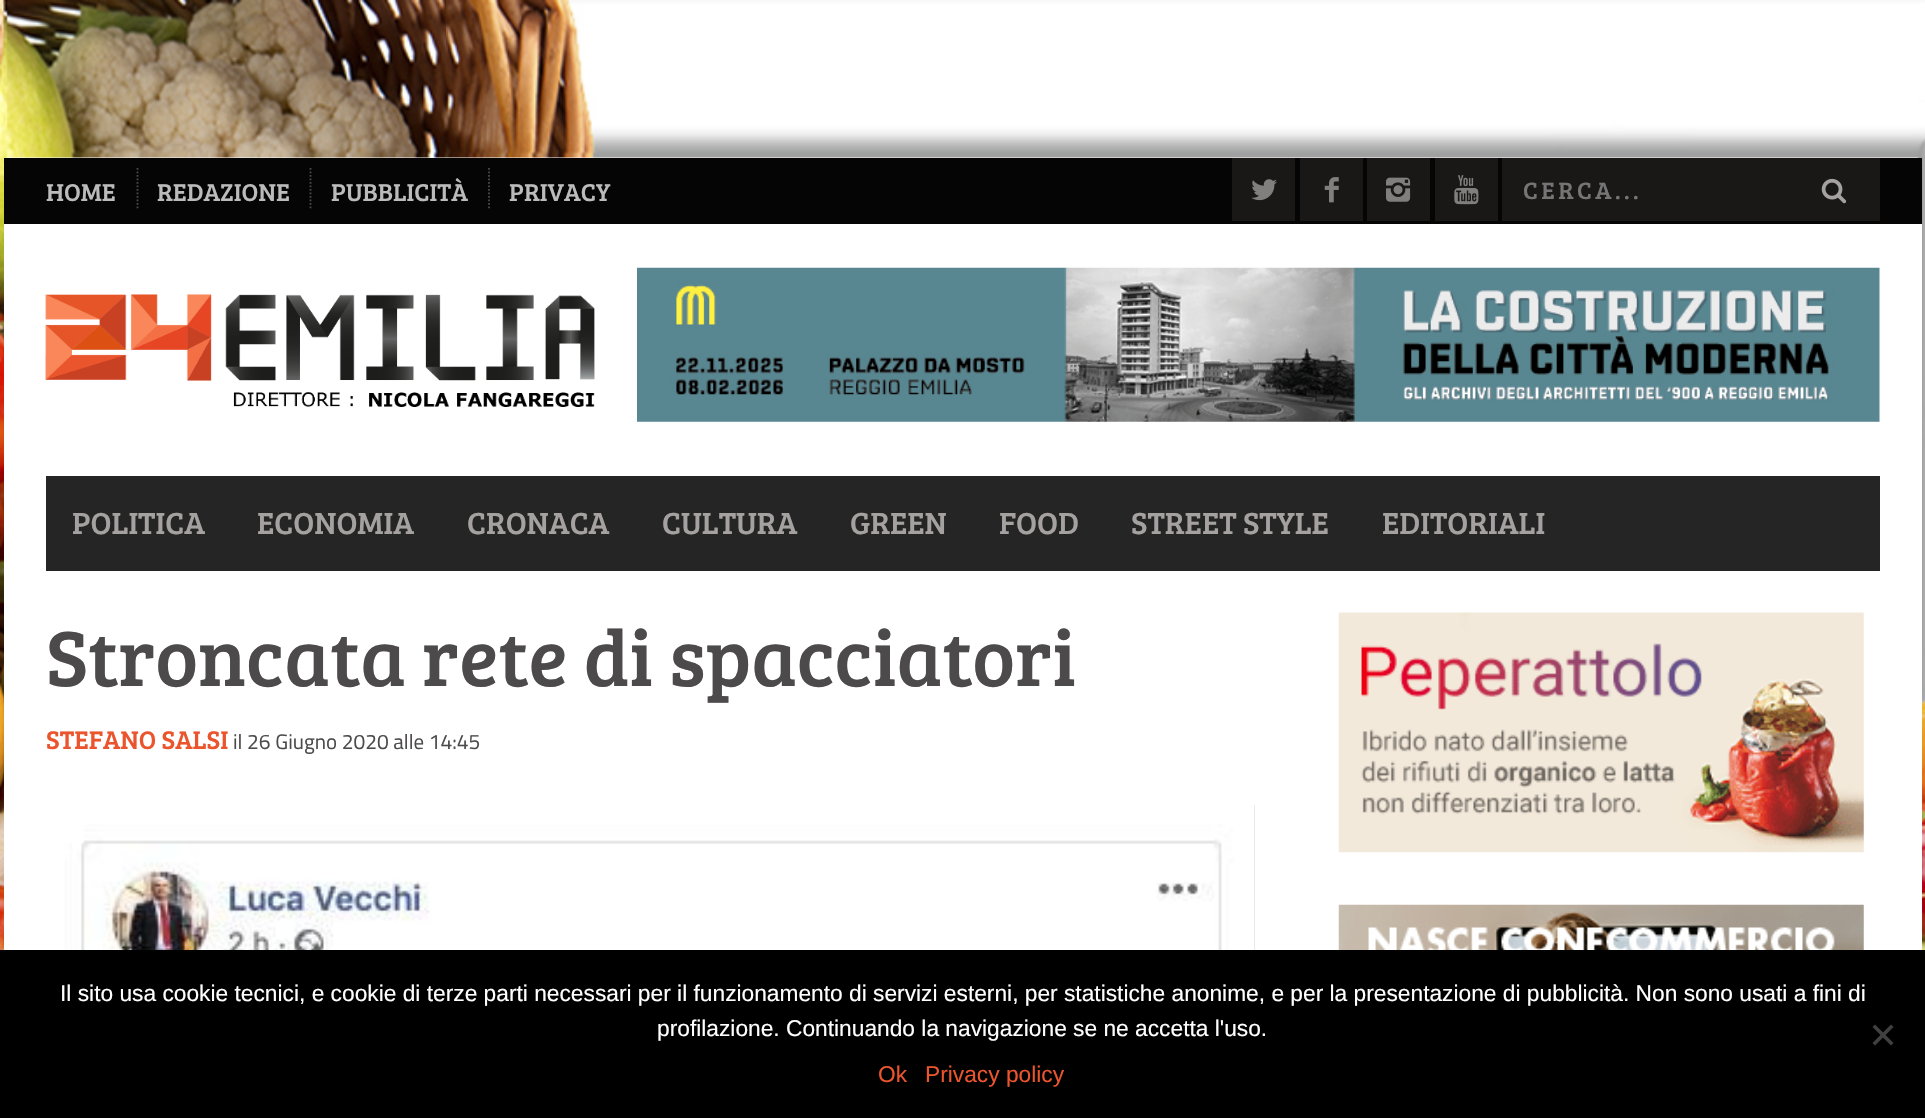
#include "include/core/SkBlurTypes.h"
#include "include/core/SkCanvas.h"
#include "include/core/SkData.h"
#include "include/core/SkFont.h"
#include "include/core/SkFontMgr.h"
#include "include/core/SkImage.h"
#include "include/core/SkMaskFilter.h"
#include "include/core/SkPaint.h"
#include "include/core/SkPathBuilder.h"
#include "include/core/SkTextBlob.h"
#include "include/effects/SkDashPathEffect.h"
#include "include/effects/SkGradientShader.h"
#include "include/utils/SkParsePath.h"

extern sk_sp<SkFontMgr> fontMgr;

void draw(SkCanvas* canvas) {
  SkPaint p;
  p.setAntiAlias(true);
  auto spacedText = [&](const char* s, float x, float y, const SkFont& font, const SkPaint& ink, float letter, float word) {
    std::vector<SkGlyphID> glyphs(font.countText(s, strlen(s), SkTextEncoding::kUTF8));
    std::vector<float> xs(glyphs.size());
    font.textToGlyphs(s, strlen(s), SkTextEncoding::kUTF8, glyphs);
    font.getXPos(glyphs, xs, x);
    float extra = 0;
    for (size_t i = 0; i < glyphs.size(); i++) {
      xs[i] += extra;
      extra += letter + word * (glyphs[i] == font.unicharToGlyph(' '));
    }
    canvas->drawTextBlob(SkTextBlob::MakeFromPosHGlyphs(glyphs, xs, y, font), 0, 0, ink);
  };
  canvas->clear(SK_ColorWHITE);
  canvas->drawImageRect(SkImages::DeferredFromEncodedData(SkData::MakeFromFileName("images/1.png")), SkRect::MakeLTRB(0, 0, 1925, 950), SkSamplingOptions());
  p.setColor(SkColorSetRGB(5, 5, 5));
  canvas->drawRect(SkRect::MakeLTRB(4, 158, 1922, 224), p);
  p.setStyle(SkPaint::kStroke_Style);
  p.setStrokeWidth(1.8f);
  p.setColor(SkColorSetRGB(76, 74, 74));
  p.setPathEffect(SkDashPathEffect::Make({{1.75f, 1.75f}}, 0));
  canvas->drawPath(SkPathBuilder().moveTo(137.5f, 168).lineTo(137.5f, 210).detach(), p);
  p.setPathEffect(nullptr);
  p.setPathEffect(SkDashPathEffect::Make({{1.75f, 1.75f}}, 0));
  canvas->drawPath(SkPathBuilder().moveTo(310.5f, 168).lineTo(310.5f, 210).detach(), p);
  p.setPathEffect(nullptr);
  p.setPathEffect(SkDashPathEffect::Make({{1.75f, 1.75f}}, 0));
  canvas->drawPath(SkPathBuilder().moveTo(489, 168).lineTo(489, 210).detach(), p);
  p.setPathEffect(nullptr);
  p.setStyle(SkPaint::kFill_Style);
  p.setColor(SkColorSetRGB(26, 23, 23));
  canvas->drawRect(SkRect::MakeLTRB(1232, 158, 1295, 221), p);
  canvas->drawImageRect(SkImages::DeferredFromEncodedData(SkData::MakeFromFileName("images/2.png")), SkRect::MakeLTRB(1251, 179, 1277, 201), SkSamplingOptions());
  canvas->drawRect(SkRect::MakeLTRB(1300, 158, 1363, 221), p);
  canvas->drawImageRect(SkImages::DeferredFromEncodedData(SkData::MakeFromFileName("images/3.png")), SkRect::MakeLTRB(1324, 177, 1339, 203), SkSamplingOptions());
  canvas->drawRect(SkRect::MakeLTRB(1367, 158, 1430, 221), p);
  canvas->drawImageRect(SkImages::DeferredFromEncodedData(SkData::MakeFromFileName("images/4.png")), SkRect::MakeLTRB(1386, 177, 1411, 202), SkSamplingOptions());
  canvas->drawRect(SkRect::MakeLTRB(1435, 158, 1498, 221), p);
  canvas->drawImageRect(SkImages::DeferredFromEncodedData(SkData::MakeFromFileName("images/5.png")), SkRect::MakeLTRB(1454, 175, 1479, 205), SkSamplingOptions());
  canvas->drawRect(SkRect::MakeLTRB(1502, 158, 1880, 221), p);
  canvas->drawImageRect(SkImages::DeferredFromEncodedData(SkData::MakeFromFileName("images/6.png")), SkRect::MakeLTRB(1821, 178, 1847, 204), SkSamplingOptions());
  p.setColor(SK_ColorWHITE);
  canvas->drawRect(SkRect::MakeLTRB(4, 224, 1922, 950), p);
  canvas->drawImageRect(SkImages::DeferredFromEncodedData(SkData::MakeFromFileName("images/7.png")), SkRect::MakeLTRB(45, 294, 595, 407), SkSamplingOptions());
  canvas->drawImageRect(SkImages::DeferredFromEncodedData(SkData::MakeFromFileName("images/8.png")), SkRect::MakeLTRB(637, 267, 1880, 422), SkSamplingOptions());
  p.setColor(SkColorSetRGB(38, 37, 37));
  canvas->drawRect(SkRect::MakeLTRB(46, 476, 1880, 571), p);
  canvas->drawImageRect(SkImages::DeferredFromEncodedData(SkData::MakeFromFileName("images/9.png")), SkRect::MakeLTRB(1338, 612, 1864, 853), SkSamplingOptions());
  canvas->drawImageRect(SkImages::DeferredFromEncodedData(SkData::MakeFromFileName("images/10.png")), SkRect::MakeLTRB(1338, 904, 1864, 950), SkSamplingOptions());
  p.setColor(SkColorSetRGB(204, 204, 204));
  canvas->drawRect(SkRect::MakeLTRB(1254, 805, 1255, 950), p);
  canvas->drawImageRect(SkImages::DeferredFromEncodedData(SkData::MakeFromFileName("images/11.png")), SkRect::MakeLTRB(46, 805, 1255, 950), SkSamplingOptions());
  p.setColor(SK_ColorBLACK);
  canvas->drawRect(SkRect::MakeLTRB(0, 950, 1925, 1118), p);
  p.setColor(SkColorSetRGB(64, 64, 64));
  canvas->drawPath(SkPathBuilder().moveTo(1891, 1024.5f).lineTo(1893.5f, 1027).lineTo(1875, 1045.5f).lineTo(1872.5f, 1043).close().detach(), p);
  canvas->drawPath(SkPathBuilder().moveTo(1872.5f, 1027).lineTo(1875, 1024.5f).lineTo(1893.5f, 1043).lineTo(1891, 1045.5f).close().detach(), p);
  SkFont font1(fontMgr->matchFamilyStyle("Bree Serif", SkFontStyle::Normal()), 25.25f);
  font1.setSubpixel(true);
  p.setColor(SkColorSetRGB(187, 187, 187));
  canvas->drawString("HOME", 46, 201, font1, p);
  canvas->drawString("REDAZIONE", 157, 201, font1, p);
  canvas->drawString("PUBBLICITÀ", 331, 201, font1, p);
  canvas->drawString("PRIVACY", 509, 201, font1, p);
  SkFont font2(fontMgr->matchFamilyStyle("Bree Serif", SkFontStyle::Normal()), 24.5f);
  font2.setSubpixel(true);
  p.setColor(SkColorSetRGB(117, 117, 117));
  spacedText("CERCA...", 1523, 199, font2, p, 3.5f, 0);
  SkFont font3(fontMgr->matchFamilyStyle("Bree Serif", SkFontStyle::Normal()), 31.5f);
  font3.setSubpixel(true);
  p.setColor(SkColorSetRGB(166, 161, 161));
  canvas->drawString("POLITICA", 72, 534, font3, p);
  canvas->drawString("ECONOMIA", 257, 534, font3, p);
  canvas->drawString("CRONACA", 467, 534, font3, p);
  canvas->drawString("CULTURA", 662, 534, font3, p);
  canvas->drawString("GREEN", 850, 534, font3, p);
  canvas->drawString("FOOD", 999, 534, font3, p);
  canvas->drawString("STREET STYLE", 1131, 534, font3, p);
  canvas->drawString("EDITORIALI", 1382, 534, font3, p);
  SkFont font4(fontMgr->matchFamilyStyle("Bree Serif", SkFontStyle::Normal()), 80.5f);
  font4.setSubpixel(true);
  p.setColor(SkColorSetRGB(76, 74, 74));
  canvas->drawString("Stroncata rete di spacciatori", 46, 686, font4, p);
  SkFont font5(fontMgr->matchFamilyStyle("Bree Serif", SkFontStyle::Normal()), 26.25f);
  font5.setSubpixel(true);
  p.setColor(SkColorSetRGB(235, 85, 45));
  canvas->drawString("STEFANO SALSI", 46, 749, font5, p);
  SkFont font6(fontMgr->matchFamilyStyle("Titillium Web", SkFontStyle::Normal()), 21);
  font6.setSubpixel(true);
  p.setColor(SkColorSetRGB(76, 74, 74));
  canvas->drawString("il 26 Giugno 2020 alle 14:45", 233, 749, font6, p);
  SkFont font7(fontMgr->matchFamilyStyle("Liberation Sans", SkFontStyle::Normal()), 22.75f);
  font7.setSubpixel(true);
  p.setColor(SK_ColorWHITE);
  canvas->drawString("Il sito usa cookie tecnici, e cookie di terze parti necessari per il funzionamento di servizi esterni, per statistiche anonime, e per la presentazione di pubblicità. Non sono usati a fini di", 60, 1001, font7, p);
  canvas->drawString("profilazione. Continuando la navigazione se ne accetta l'uso.", 657, 1036, font7, p);
  p.setColor(SkColorSetRGB(235, 85, 45));
  canvas->drawString("Ok", 878, 1082, font7, p);
  canvas->drawString("Privacy policy", 925, 1082, font7, p);
}
